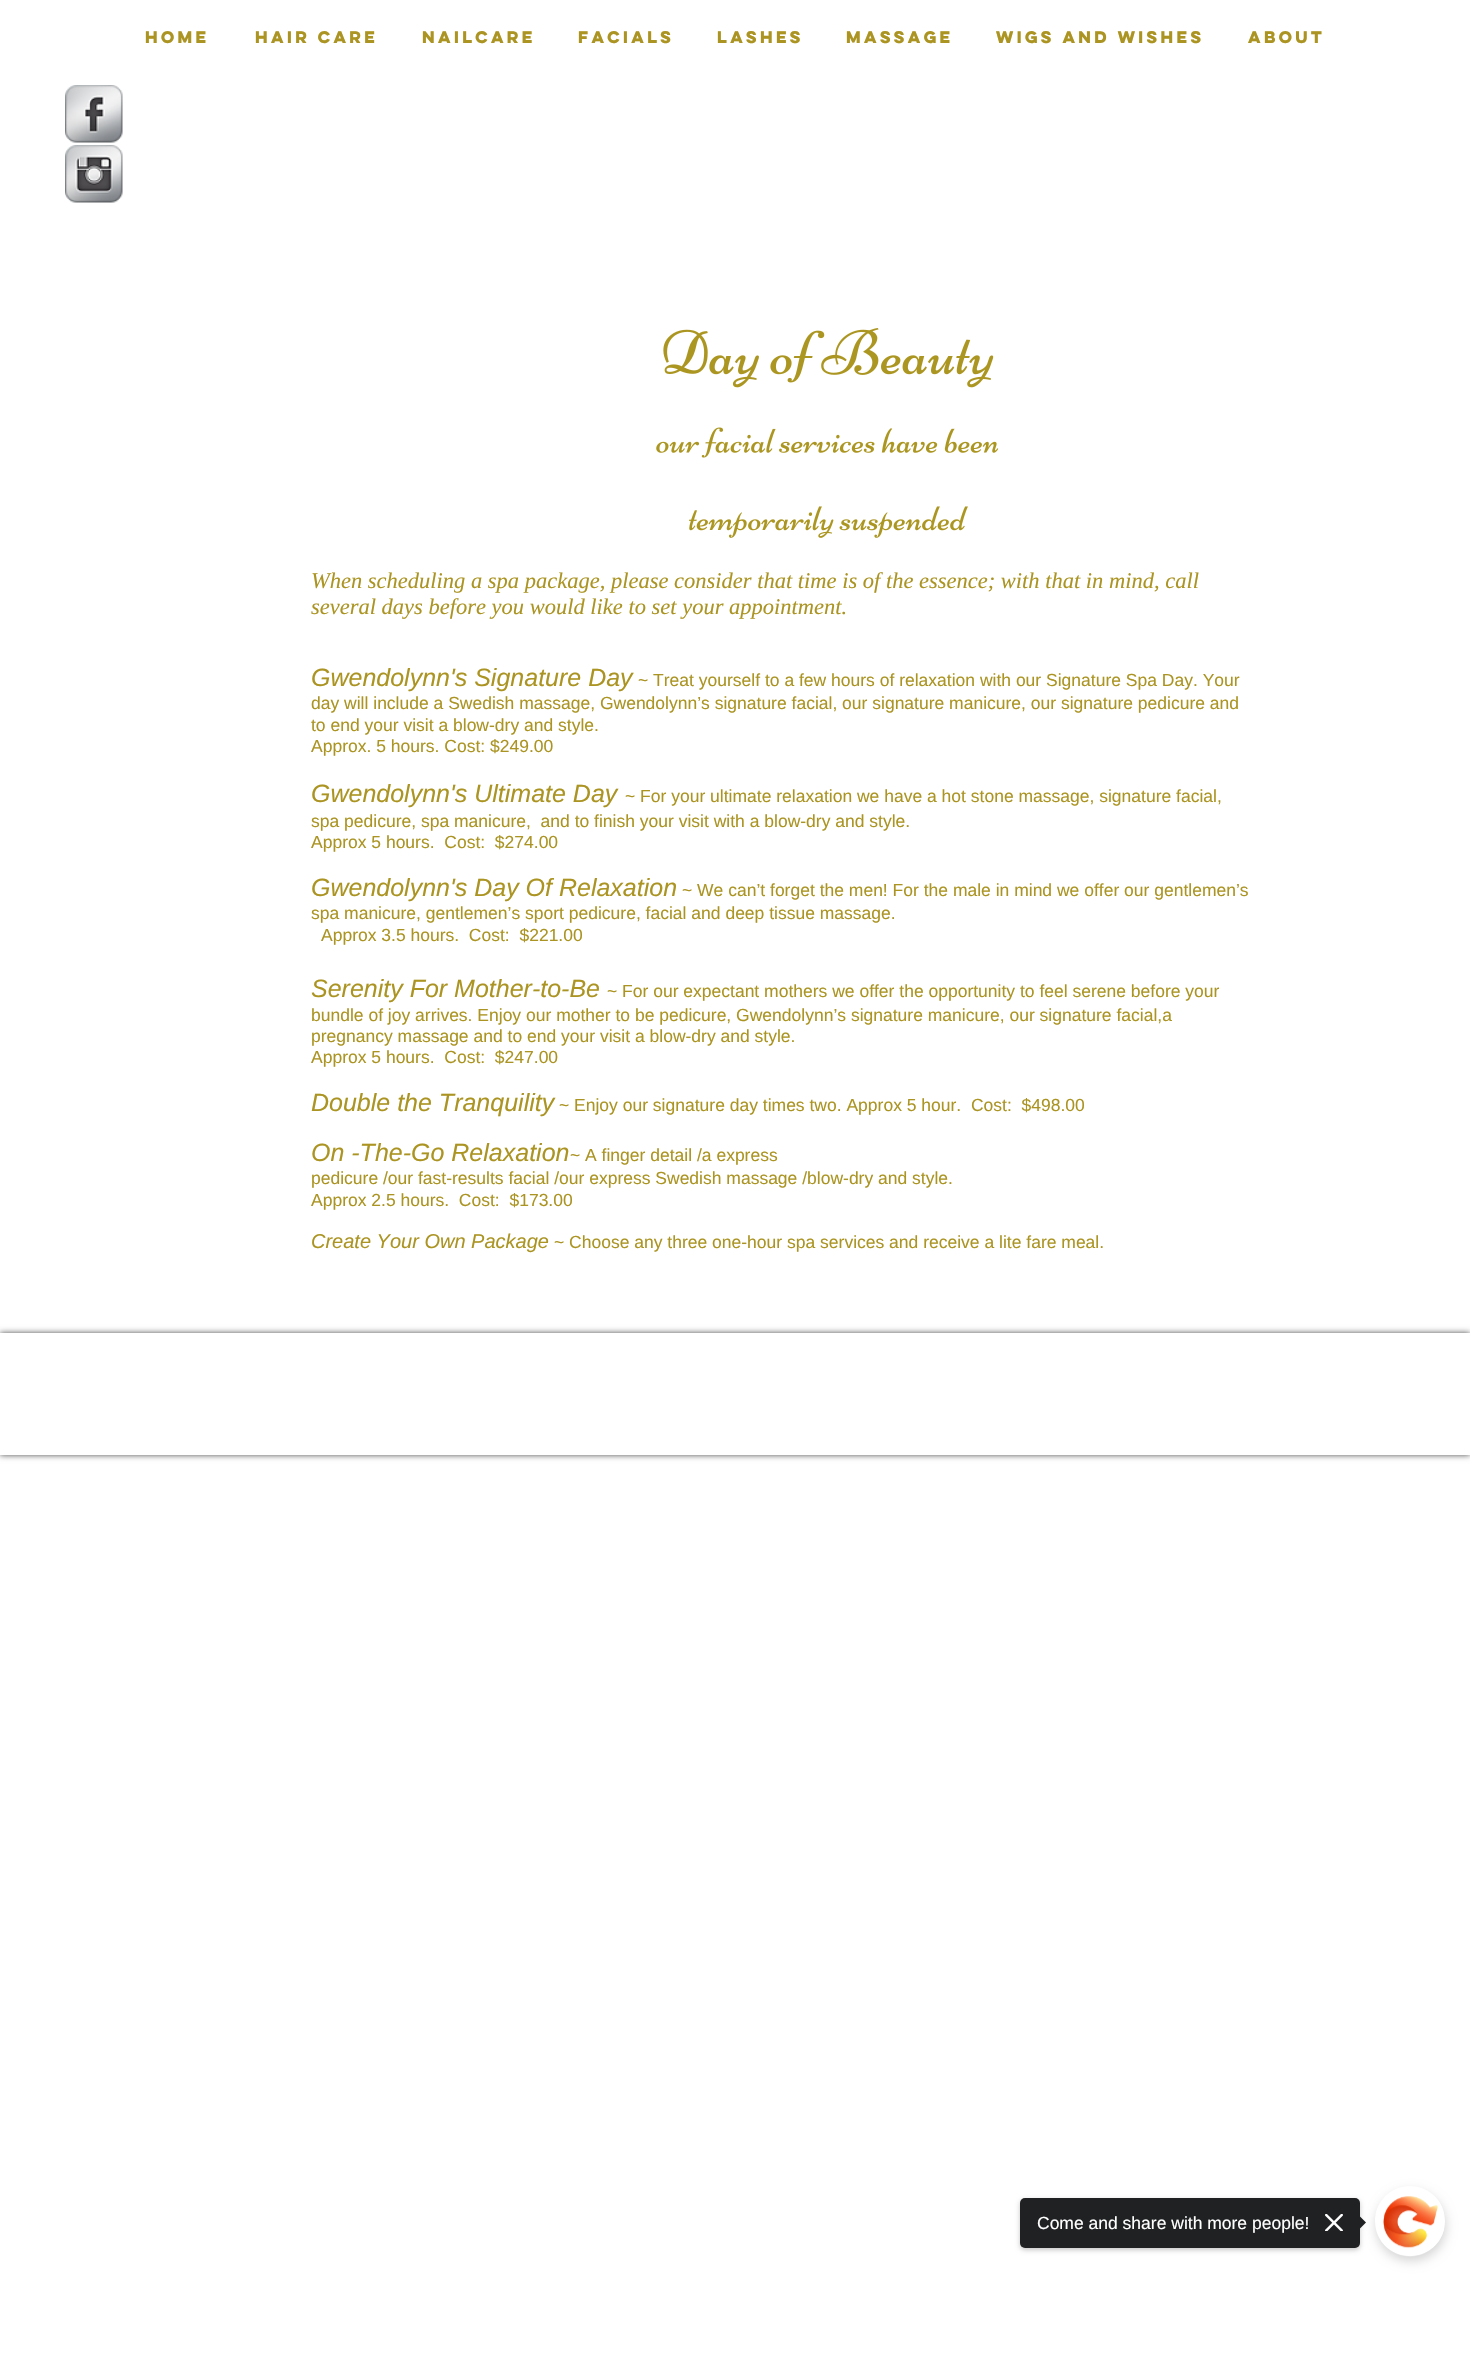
#include "include/core/SkBlurTypes.h"
#include "include/core/SkCanvas.h"
#include "include/core/SkData.h"
#include "include/core/SkFont.h"
#include "include/core/SkFontMgr.h"
#include "include/core/SkImage.h"
#include "include/core/SkMaskFilter.h"
#include "include/core/SkPaint.h"
#include "include/core/SkPathBuilder.h"
#include "include/core/SkTextBlob.h"
#include "include/effects/SkDashPathEffect.h"
#include "include/effects/SkGradientShader.h"
#include "include/utils/SkParsePath.h"

extern sk_sp<SkFontMgr> fontMgr;

void draw(SkCanvas* canvas) {
  SkPaint p;
  p.setAntiAlias(true);
  canvas->clear(SK_ColorWHITE);
  canvas->drawImageRect(SkImages::DeferredFromEncodedData(SkData::MakeFromFileName("images/1.png")), SkRect::MakeLTRB(65, 85, 123, 143), SkSamplingOptions());
  canvas->drawImageRect(SkImages::DeferredFromEncodedData(SkData::MakeFromFileName("images/2.png")), SkRect::MakeLTRB(65, 145, 123, 203), SkSamplingOptions());
  canvas->drawImageRect(SkImages::DeferredFromEncodedData(SkData::MakeFromFileName("images/3.png")), SkRect::MakeLTRB(663, 328, 994, 388), SkSamplingOptions());
  canvas->drawImageRect(SkImages::DeferredFromEncodedData(SkData::MakeFromFileName("images/4.png")), SkRect::MakeLTRB(656, 427, 999, 458), SkSamplingOptions());
  canvas->drawImageRect(SkImages::DeferredFromEncodedData(SkData::MakeFromFileName("images/5.png")), SkRect::MakeLTRB(689, 506, 968, 538), SkSamplingOptions());
  canvas->save();
  canvas->clipPath(SkPathBuilder(SkPathFillType::kEvenOdd).moveTo(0, 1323).lineTo(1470, 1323).lineTo(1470, 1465).lineTo(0, 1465).close().moveTo(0, 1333).lineTo(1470, 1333).lineTo(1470, 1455).lineTo(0, 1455).close().detach(), true);
  p.setColor(SkColorSetARGB(179, 0, 0, 0));
  p.setMaskFilter(SkMaskFilter::MakeBlur(kNormal_SkBlurStyle, 3));
  canvas->drawRect(SkRect::MakeLTRB(0, 1333, 1470, 1455), p);
  p.setMaskFilter(nullptr);
  canvas->restore();
  canvas->save();
  canvas->clipPath(SkPathBuilder(SkPathFillType::kEvenOdd).moveTo(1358, 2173).lineTo(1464, 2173).lineTo(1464, 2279).lineTo(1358, 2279).close().moveTo(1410, 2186).cubicTo(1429.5f, 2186, 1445, 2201.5f, 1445, 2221).cubicTo(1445, 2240.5f, 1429.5f, 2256, 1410, 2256).cubicTo(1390.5f, 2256, 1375, 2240.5f, 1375, 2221).cubicTo(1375, 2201.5f, 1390.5f, 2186, 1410, 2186).close().detach(), true);
  p.setColor(SkColorSetARGB(43, 0, 0, 0));
  p.setMaskFilter(SkMaskFilter::MakeBlur(kNormal_SkBlurStyle, 5.5f));
  canvas->drawRoundRect(SkRect::MakeLTRB(1376, 2191, 1446, 2261), 35, 35, p);
  p.setMaskFilter(nullptr);
  canvas->restore();
  p.setColor(SkColorSetARGB(56, 0, 0, 0));
  p.setMaskFilter(SkMaskFilter::MakeBlur(kNormal_SkBlurStyle, 2.5f));
  canvas->drawRoundRect(SkRect::MakeLTRB(1020, 2200, 1360, 2250), 5, 5, p);
  p.setMaskFilter(nullptr);
  p.setColor(SkColorSetRGB(32, 33, 35));
  canvas->drawRoundRect(SkRect::MakeLTRB(1020, 2198, 1360, 2248), 5, 5, p);
  canvas->drawImageRect(SkImages::DeferredFromEncodedData(SkData::MakeFromFileName("images/6.png")), SkRect::MakeLTRB(1325, 2214, 1343, 2231), SkSamplingOptions());
  canvas->drawPath(SkPathBuilder().moveTo(1357.5f, 2231).lineTo(1357.5f, 2214).lineTo(1366, 2222.5f).close().detach(), p);
  canvas->drawImageRect(SkImages::DeferredFromEncodedData(SkData::MakeFromFileName("images/7.png")), SkRect::MakeLTRB(1381, 2196, 1444, 2257), SkSamplingOptions());
  SkFont font1(fontMgr->matchFamilyStyle("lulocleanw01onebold", SkFontStyle::Bold()), 15);
  font1.setSubpixel(true);
  p.setColor(SkColorSetRGB(171, 148, 34));
  canvas->drawString("Home", 145, 43, font1, p);
  canvas->drawString("Hair Care", 255, 43, font1, p);
  canvas->drawString("Nailcare", 422, 43, font1, p);
  canvas->drawString("Facials", 578, 43, font1, p);
  canvas->drawString("Lashes", 717, 43, font1, p);
  canvas->drawString("Massage", 846, 43, font1, p);
  canvas->drawString("Wigs and Wishes", 996, 43, font1, p);
  canvas->drawString("About", 1248, 43, font1, p);
  SkFont font2(fontMgr->matchFamilyStyle("Liberation Serif", SkFontStyle::Italic()), 22.5f);
  font2.setSubpixel(true);
  canvas->drawString("When scheduling a spa package, please consider that time is of the essence; with that in mind, call", 311, 588, font2, p);
  canvas->drawString("several days before you would like to set your appointment.", 311, 614, font2, p);
  SkFont font3(fontMgr->matchFamilyStyle("Liberation Sans", SkFontStyle::Italic()), 25);
  font3.setSubpixel(true);
  canvas->drawString("Gwendolynn's Signature Day", 311, 686, font3, p);
  SkFont font4(fontMgr->matchFamilyStyle("Liberation Sans", SkFontStyle::Normal()), 17.5f);
  font4.setSubpixel(true);
  canvas->drawString("~ Treat yourself to a few hours of relaxation with our Signature Spa Day. Your", 638, 686, font4, p);
  canvas->drawString("day will include a Swedish massage, Gwendolynn’s signature facial, our signature manicure, our signature pedicure and", 311, 709, font4, p);
  canvas->drawString("to end your visit a blow-dry and style.", 311, 731, font4, p);
  canvas->drawString("Approx. 5 hours. Cost: $249.00", 311, 752, font4, p);
  canvas->drawString("Gwendolynn's Ultimate Day", 311, 802, font3, p);
  canvas->drawString("~ For your ultimate relaxation we have a hot stone massage, signature facial,", 625, 802, font4, p);
  canvas->drawString("spa pedicure, spa manicure,  and to finish your visit with a blow-dry and style.", 311, 827, font4, p);
  canvas->drawString("Approx 5 hours.  Cost:  $274.00", 311, 848, font4, p);
  canvas->drawString("Gwendolynn's Day Of Relaxation", 311, 896, font3, p);
  canvas->drawString("~ We can’t forget the men! For the male in mind we offer our gentlemen’s", 682, 896, font4, p);
  canvas->drawString("spa manicure, gentlemen’s sport pedicure, facial and deep tissue massage.", 311, 919, font4, p);
  canvas->drawString("Approx 3.5 hours.  Cost:  $221.00", 321, 941, font4, p);
  canvas->drawString("Serenity For Mother-to-Be", 311, 997, font3, p);
  canvas->drawString("~ For our expectant mothers we offer the opportunity to feel serene before your", 607, 997, font4, p);
  canvas->drawString("bundle of joy arrives. Enjoy our mother to be pedicure, Gwendolynn’s signature manicure, our signature facial,a", 311, 1021, font4, p);
  canvas->drawString("pregnancy massage and to end your visit a blow-dry and style.", 311, 1042, font4, p);
  canvas->drawString("Approx 5 hours.  Cost:  $247.00", 311, 1063, font4, p);
  canvas->drawString("Double the Tranquility", 311, 1111, font3, p);
  canvas->drawString("~ Enjoy our signature day times two. Approx 5 hour.  Cost:  $498.00", 559, 1111, font4, p);
  canvas->drawString("On -The-Go Relaxation", 311, 1161, font3, p);
  canvas->drawString("~ A finger detail /a express", 570, 1161, font4, p);
  canvas->drawString("pedicure /our fast-results facial /our express Swedish massage /blow-dry and style.", 311, 1184, font4, p);
  canvas->drawString("Approx 2.5 hours.  Cost:  $173.00", 311, 1206, font4, p);
  SkFont font5(fontMgr->matchFamilyStyle("Liberation Sans", SkFontStyle::Italic()), 20);
  font5.setSubpixel(true);
  canvas->drawString("Create Your Own Package", 311, 1248, font5, p);
  canvas->drawString("~ Choose any three one-hour spa services and receive a lite fare meal.", 554, 1248, font4, p);
  p.setColor(SK_ColorWHITE);
  canvas->drawString("Come and share with more people!", 1037, 2229, font4, p);
}
